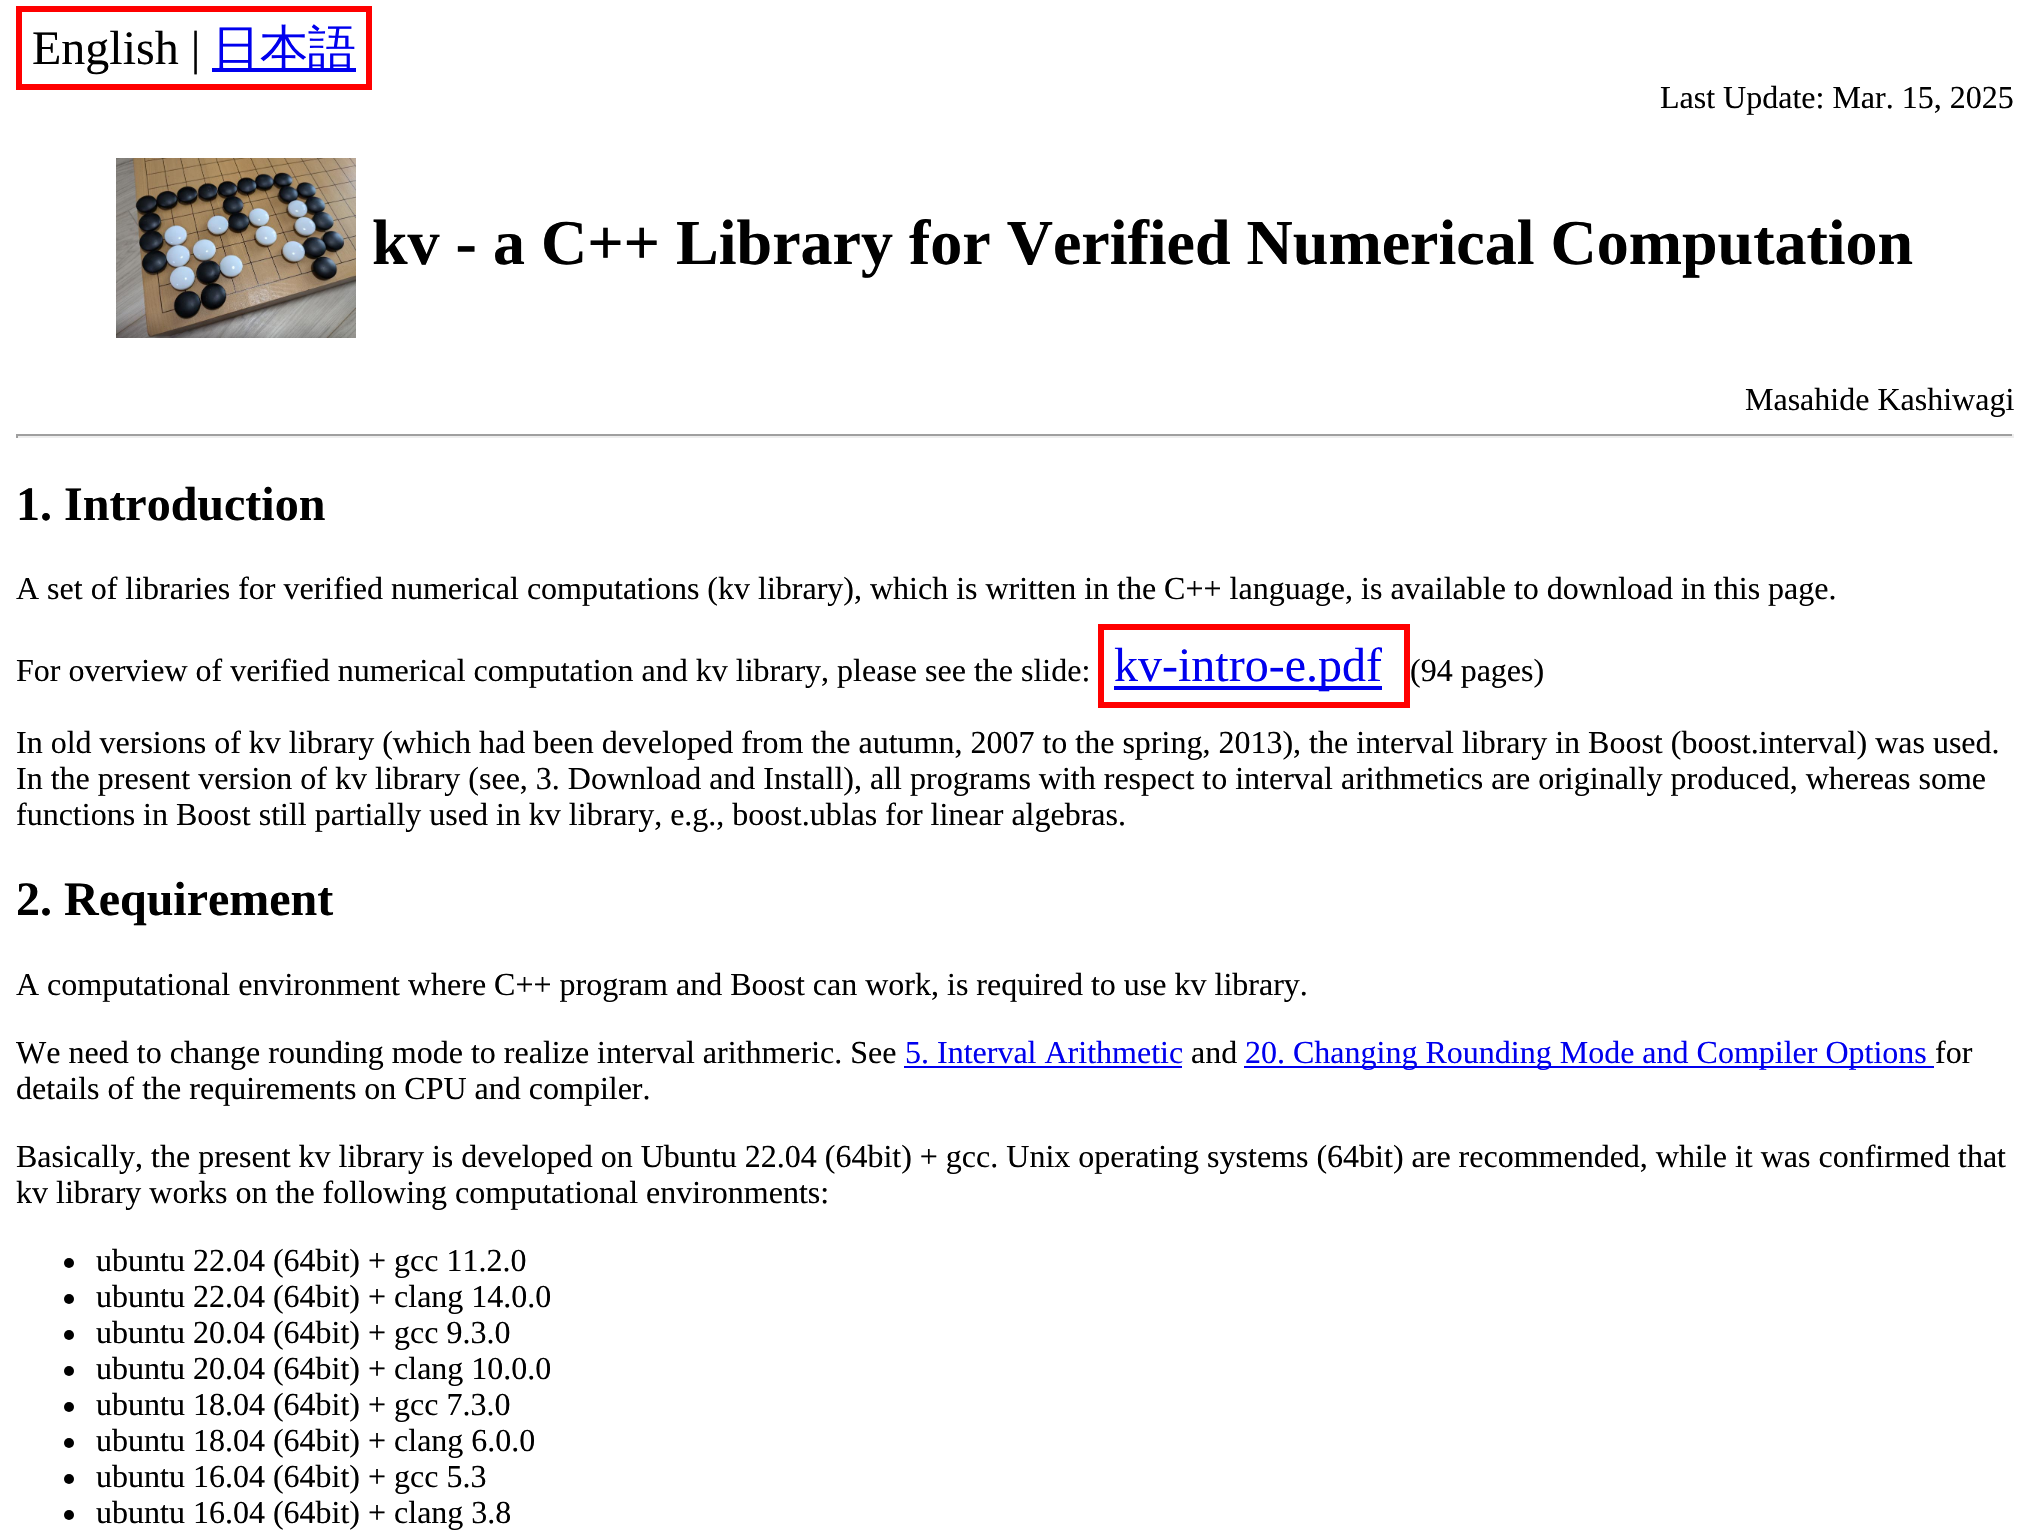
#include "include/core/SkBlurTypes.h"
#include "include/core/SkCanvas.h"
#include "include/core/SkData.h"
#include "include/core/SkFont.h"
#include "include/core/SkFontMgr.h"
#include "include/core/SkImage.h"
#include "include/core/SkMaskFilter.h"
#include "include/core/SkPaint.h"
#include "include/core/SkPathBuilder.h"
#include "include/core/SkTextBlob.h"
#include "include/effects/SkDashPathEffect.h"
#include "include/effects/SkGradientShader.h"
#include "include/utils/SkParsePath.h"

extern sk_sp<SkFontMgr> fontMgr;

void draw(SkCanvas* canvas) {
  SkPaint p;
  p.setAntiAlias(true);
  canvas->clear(SK_ColorWHITE);
  p.setColor(SkColorSetRGB(255, 0, 0));
  canvas->drawRect(SkRect::MakeLTRB(16, 84, 212, 90), p);
  canvas->drawRect(SkRect::MakeLTRB(16, 6, 372, 12), p);
  canvas->drawRect(SkRect::MakeLTRB(16, 6, 22, 90), p);
  canvas->drawRect(SkRect::MakeLTRB(366, 6, 372, 90), p);
  canvas->drawRect(SkRect::MakeLTRB(212, 84, 372, 90), p);
  p.setColor(SkColorSetRGB(0, 0, 238));
  canvas->drawRect(SkRect::MakeLTRB(212, 68, 356, 72), p);
  canvas->drawImageRect(SkImages::DeferredFromEncodedData(SkData::MakeFromFileName("images/1.png")), SkRect::MakeLTRB(116, 158, 356, 338), SkSamplingOptions());
  p.setColor(SkColorSetRGB(159, 159, 159));
  canvas->drawRect(SkRect::MakeLTRB(16, 434, 2014, 436), p);
  p.setColor(SkColorSetRGB(238, 238, 238));
  canvas->drawRect(SkRect::MakeLTRB(2012, 434, 2014, 438), p);
  canvas->drawRect(SkRect::MakeLTRB(16, 436, 2014, 438), p);
  p.setColor(SkColorSetRGB(159, 159, 159));
  canvas->drawRect(SkRect::MakeLTRB(16, 434, 18, 438), p);
  p.setColor(SkColorSetRGB(255, 0, 0));
  canvas->drawRect(SkRect::MakeLTRB(1098, 624, 1410, 630), p);
  canvas->drawRect(SkRect::MakeLTRB(1098, 702, 1382, 708), p);
  canvas->drawRect(SkRect::MakeLTRB(1098, 624, 1104, 708), p);
  canvas->drawRect(SkRect::MakeLTRB(1404, 624, 1410, 708), p);
  canvas->drawRect(SkRect::MakeLTRB(1382, 702, 1410, 708), p);
  p.setColor(SkColorSetRGB(0, 0, 238));
  canvas->drawRect(SkRect::MakeLTRB(1114, 686, 1382, 690), p);
  canvas->drawRect(SkRect::MakeLTRB(904, 1066, 1182, 1068), p);
  canvas->drawRect(SkRect::MakeLTRB(1244, 1066, 1934, 1068), p);
  p.setColor(SK_ColorBLACK);
  canvas->drawCircle(69, 1263, 5, p);
  canvas->drawCircle(69, 1299, 5, p);
  canvas->drawCircle(69, 1335, 5, p);
  canvas->drawCircle(69, 1371, 5, p);
  canvas->drawCircle(69, 1407, 5, p);
  canvas->drawCircle(69, 1443, 5, p);
  canvas->drawCircle(69, 1479, 5, p);
  canvas->drawCircle(69, 1515, 5, p);
  SkFont font1(fontMgr->matchFamilyStyle("Liberation Serif", SkFontStyle::Normal()), 48);
  font1.setSubpixel(true);
  canvas->drawString("English |", 32, 64, font1, p);
  SkFont font2(fontMgr->matchFamilyStyle("WenQuanYi Zen Hei", SkFontStyle(500, SkFontStyle::kNormal_Width, SkFontStyle::kUpright_Slant)), 48);
  font2.setSubpixel(true);
  p.setColor(SkColorSetRGB(0, 0, 238));
  canvas->drawString("日本語", 212, 64, font2, p);
  SkFont font3(fontMgr->matchFamilyStyle("Liberation Serif", SkFontStyle::Normal()), 32);
  font3.setSubpixel(true);
  p.setColor(SK_ColorBLACK);
  canvas->drawString("Last Update: Mar. 15, 2025", 1660, 108, font3, p);
  SkFont font4(fontMgr->matchFamilyStyle("Liberation Serif", SkFontStyle::Bold()), 64);
  font4.setSubpixel(true);
  canvas->drawString("kv - a C++ Library for Verified Numerical Computation", 372, 264, font4, p);
  canvas->drawString("Masahide Kashiwagi", 1745, 410, font3, p);
  SkFont font5(fontMgr->matchFamilyStyle("Liberation Serif", SkFontStyle::Bold()), 48);
  font5.setSubpixel(true);
  canvas->drawString("1. Introduction", 16, 520, font5, p);
  canvas->drawString("A set of libraries for verified numerical computations (kv library), which is written in the C++ language, is available to download in this page.", 16, 599, font3, p);
  canvas->drawString("For overview of verified numerical computation and kv library, please see the slide:", 16, 681, font3, p);
  p.setColor(SkColorSetRGB(0, 0, 238));
  canvas->drawString("kv-intro-e.pdf", 1114, 681, font1, p);
  p.setColor(SK_ColorBLACK);
  canvas->drawString("(94 pages)", 1410, 681, font3, p);
  canvas->drawString("In old versions of kv library (which had been developed from the autumn, 2007 to the spring, 2013), the interval library in Boost (boost.interval) was used.", 16, 753, font3, p);
  canvas->drawString("In the present version of kv library (see, 3. Download and Install), all programs with respect to interval arithmetics are originally produced, whereas some", 16, 789, font3, p);
  canvas->drawString("functions in Boost still partially used in kv library, e.g., boost.ublas for linear algebras.", 16, 825, font3, p);
  canvas->drawString("2. Requirement", 16, 915, font5, p);
  canvas->drawString("A computational environment where C++ program and Boost can work, is required to use kv library.", 16, 995, font3, p);
  canvas->drawString("We need to change rounding mode to realize interval arithmeric. See", 16, 1063, font3, p);
  p.setColor(SkColorSetRGB(0, 0, 238));
  canvas->drawString("5. Interval Arithmetic", 905, 1063, font3, p);
  p.setColor(SK_ColorBLACK);
  canvas->drawString("and", 1191, 1063, font3, p);
  p.setColor(SkColorSetRGB(0, 0, 238));
  canvas->drawString("20. Changing Rounding Mode and Compiler Options", 1245, 1063, font3, p);
  p.setColor(SK_ColorBLACK);
  canvas->drawString("for", 1935, 1063, font3, p);
  canvas->drawString("details of the requirements on CPU and compiler.", 16, 1099, font3, p);
  canvas->drawString("Basically, the present kv library is developed on Ubuntu 22.04 (64bit) + gcc. Unix operating systems (64bit) are recommended, while it was confirmed that", 16, 1167, font3, p);
  canvas->drawString("kv library works on the following computational environments:", 16, 1203, font3, p);
  canvas->drawString("ubuntu 22.04 (64bit) + gcc 11.2.0", 96, 1271, font3, p);
  canvas->drawString("ubuntu 22.04 (64bit) + clang 14.0.0", 96, 1307, font3, p);
  canvas->drawString("ubuntu 20.04 (64bit) + gcc 9.3.0", 96, 1343, font3, p);
  canvas->drawString("ubuntu 20.04 (64bit) + clang 10.0.0", 96, 1379, font3, p);
  canvas->drawString("ubuntu 18.04 (64bit) + gcc 7.3.0", 96, 1415, font3, p);
  canvas->drawString("ubuntu 18.04 (64bit) + clang 6.0.0", 96, 1451, font3, p);
  canvas->drawString("ubuntu 16.04 (64bit) + gcc 5.3", 96, 1487, font3, p);
  canvas->drawString("ubuntu 16.04 (64bit) + clang 3.8", 96, 1523, font3, p);
}
